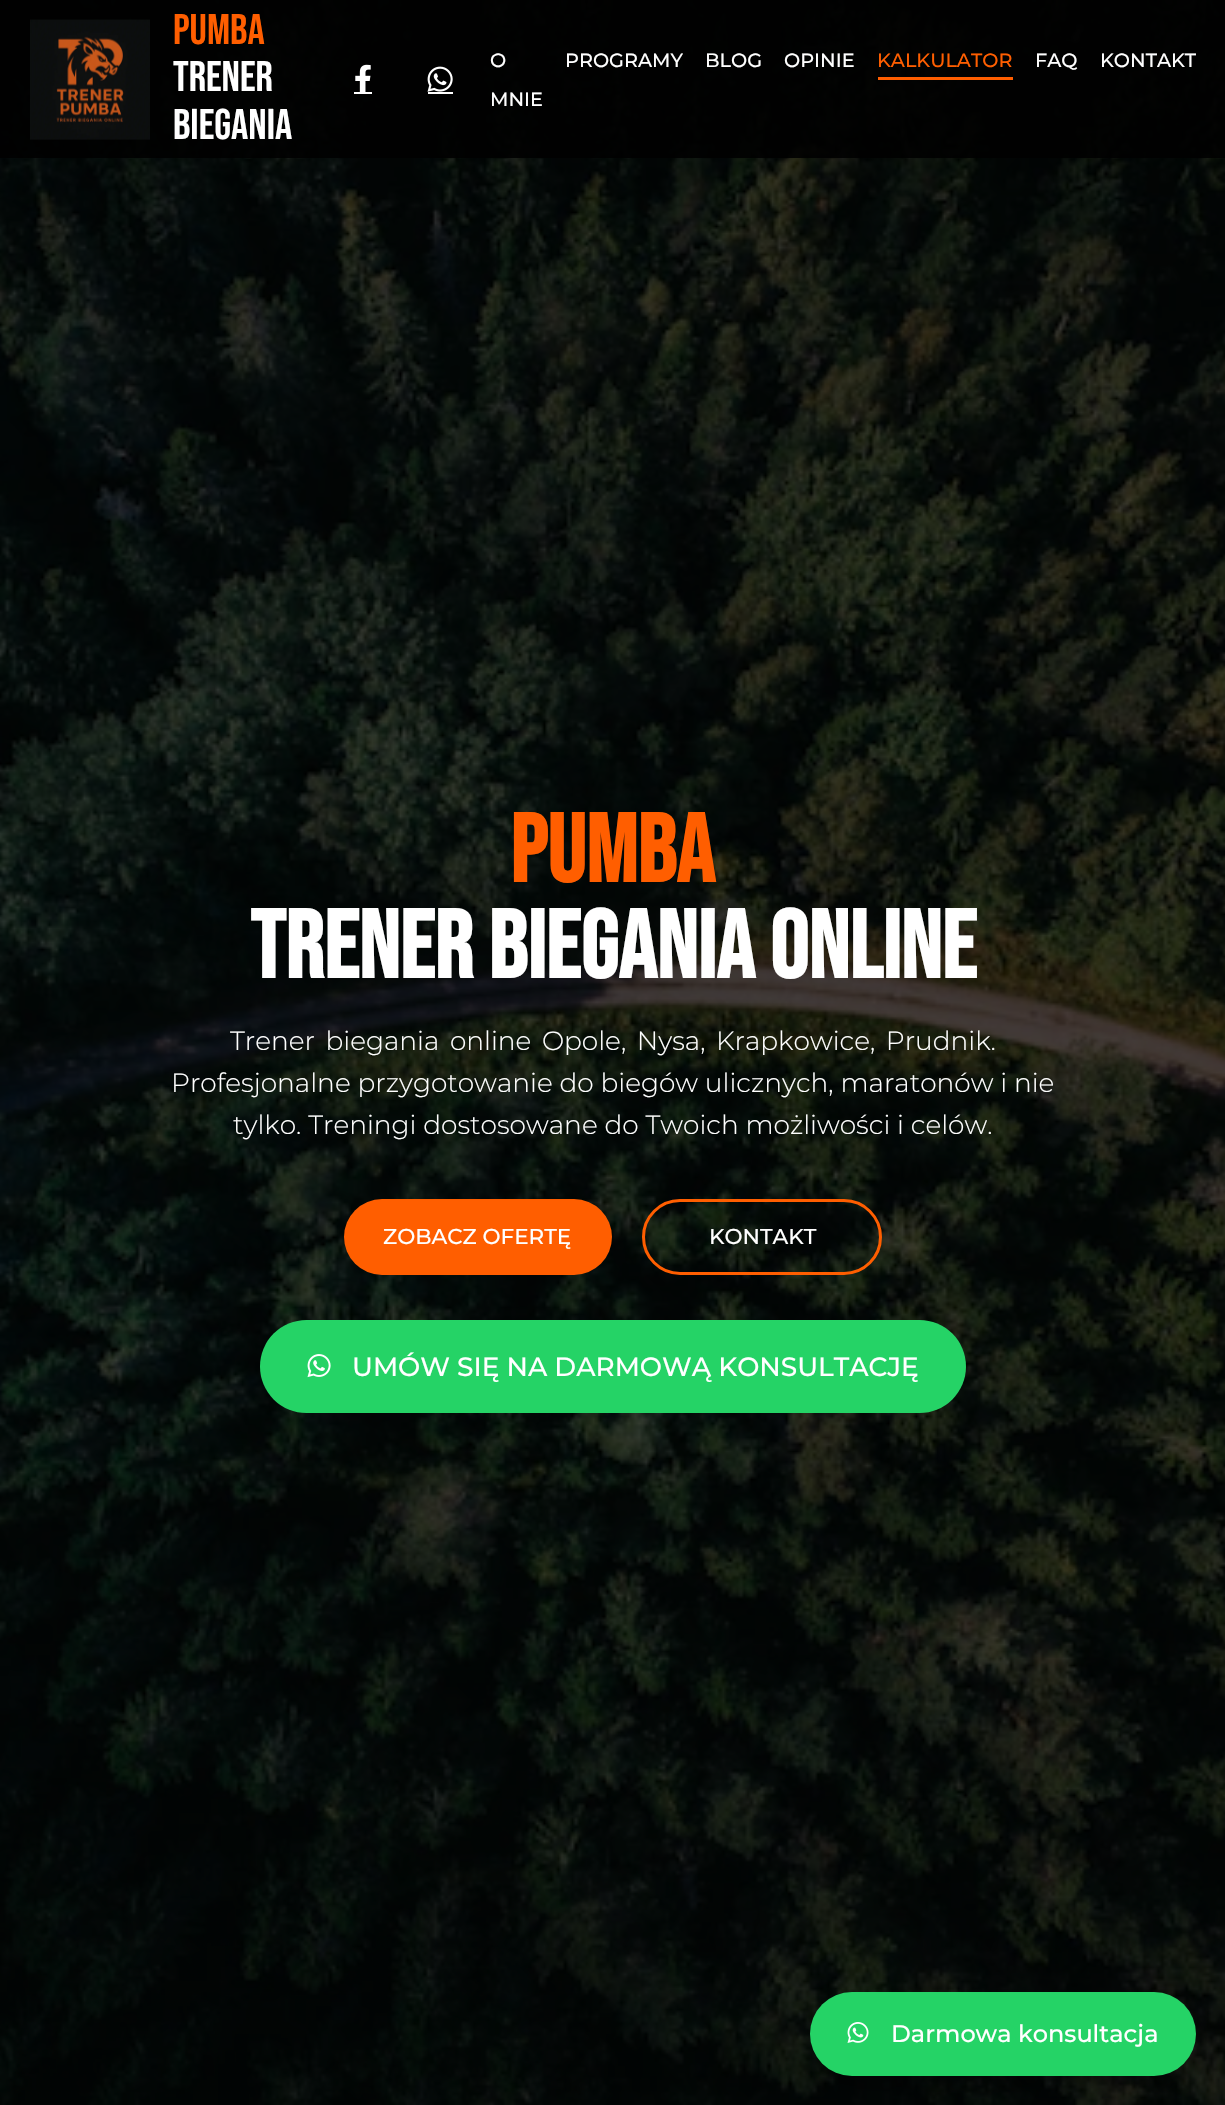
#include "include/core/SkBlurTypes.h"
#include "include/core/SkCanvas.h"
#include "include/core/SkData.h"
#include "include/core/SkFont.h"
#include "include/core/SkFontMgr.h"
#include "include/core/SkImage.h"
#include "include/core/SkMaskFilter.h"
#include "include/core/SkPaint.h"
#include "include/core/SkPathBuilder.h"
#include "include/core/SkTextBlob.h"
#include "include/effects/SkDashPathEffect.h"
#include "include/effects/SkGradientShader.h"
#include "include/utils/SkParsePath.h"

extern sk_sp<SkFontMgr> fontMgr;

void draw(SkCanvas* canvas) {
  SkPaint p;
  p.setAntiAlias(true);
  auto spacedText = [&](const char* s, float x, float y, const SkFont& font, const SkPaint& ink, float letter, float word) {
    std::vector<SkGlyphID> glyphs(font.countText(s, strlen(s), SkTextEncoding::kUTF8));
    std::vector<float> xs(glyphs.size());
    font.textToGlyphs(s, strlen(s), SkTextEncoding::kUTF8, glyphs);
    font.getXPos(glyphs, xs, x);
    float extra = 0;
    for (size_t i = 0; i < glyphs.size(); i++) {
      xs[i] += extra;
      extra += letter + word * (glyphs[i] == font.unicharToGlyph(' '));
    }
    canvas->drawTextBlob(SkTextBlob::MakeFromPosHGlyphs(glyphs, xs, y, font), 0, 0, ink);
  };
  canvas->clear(SK_ColorWHITE);
  canvas->drawImageRect(SkImages::DeferredFromEncodedData(SkData::MakeFromFileName("images/1.png")), SkRect::MakeLTRB(0, 0, 1225, 2105), SkSamplingOptions());
  p.setColor(SkColorSetARGB(230, 0, 0, 0));
  canvas->drawRect(SkRect::MakeLTRB(0, 0, 1225, 158), p);
  canvas->drawImageRect(SkImages::DeferredFromEncodedData(SkData::MakeFromFileName("images/2.png")), SkRect::MakeLTRB(30, 19, 150, 140), SkSamplingOptions());
  canvas->drawImageRect(SkImages::DeferredFromEncodedData(SkData::MakeFromFileName("images/3.png")), SkRect::MakeLTRB(355, 64, 371, 92), SkSamplingOptions());
  p.setColor(SK_ColorWHITE);
  canvas->drawRect(SkRect::MakeLTRB(354, 92, 372, 94), p);
  canvas->drawImageRect(SkImages::DeferredFromEncodedData(SkData::MakeFromFileName("images/4.png")), SkRect::MakeLTRB(427, 66, 453, 92), SkSamplingOptions());
  canvas->drawRect(SkRect::MakeLTRB(428, 92, 453, 94), p);
  p.setColor(SkColorSetRGB(255, 94, 0));
  canvas->drawRect(SkRect::MakeLTRB(878, 77, 1013, 80), p);
  canvas->drawRoundRect(SkRect::MakeLTRB(344, 1199, 612, 1275), 38, 38, p);
  p.setStyle(SkPaint::kStroke_Style);
  p.setStrokeWidth(3);
  canvas->drawRoundRect(SkRect::MakeLTRB(643.5f, 1200.5f, 880.5f, 1273.5f), 36.5f, 36.5f, p);
  p.setStyle(SkPaint::kFill_Style);
  p.setColor(SkColorSetRGB(37, 211, 102));
  canvas->drawRoundRect(SkRect::MakeLTRB(260, 1320, 966, 1413), 46.5f, 46.5f, p);
  canvas->drawImageRect(SkImages::DeferredFromEncodedData(SkData::MakeFromFileName("images/5.png")), SkRect::MakeLTRB(307, 1354, 331, 1378), SkSamplingOptions());
  p.setColor(SkColorSetARGB(77, 0, 0, 0));
  p.setMaskFilter(SkMaskFilter::MakeBlur(kNormal_SkBlurStyle, 11));
  canvas->drawRoundRect(SkRect::MakeLTRB(810, 2000, 1196, 2084), 42, 42, p);
  p.setMaskFilter(nullptr);
  p.setColor(SkColorSetRGB(37, 211, 102));
  canvas->drawRoundRect(SkRect::MakeLTRB(810, 1992, 1196, 2076), 42, 42, p);
  canvas->drawImageRect(SkImages::DeferredFromEncodedData(SkData::MakeFromFileName("images/6.png")), SkRect::MakeLTRB(847, 2022, 869, 2043), SkSamplingOptions());
  SkFont font1(fontMgr->matchFamilyStyle("Bebas Neue", SkFontStyle::Normal()), 43);
  font1.setSubpixel(true);
  p.setColor(SkColorSetRGB(255, 94, 0));
  canvas->drawString("PUMBA", 173, 44, font1, p);
  p.setColor(SK_ColorWHITE);
  canvas->drawString("TRENER", 173, 91, font1, p);
  canvas->drawString("BIEGANIA", 173, 139, font1, p);
  SkFont font2(fontMgr->matchFamilyStyle("Montserrat", SkFontStyle(500, SkFontStyle::kNormal_Width, SkFontStyle::kUpright_Slant)), 19.25f);
  font2.setSubpixel(true);
  canvas->drawString("O", 490, 67, font2, p);
  canvas->drawString("MNIE", 490, 106, font2, p);
  canvas->drawString("PROGRAMY", 565, 67, font2, p);
  canvas->drawString("BLOG", 705, 67, font2, p);
  canvas->drawString("OPINIE", 784, 67, font2, p);
  p.setColor(SkColorSetRGB(255, 94, 0));
  canvas->drawString("KALKULATOR", 877, 67, font2, p);
  p.setColor(SK_ColorWHITE);
  canvas->drawString("FAQ", 1035, 67, font2, p);
  canvas->drawString("KONTAKT", 1100, 67, font2, p);
  SkFont font3(fontMgr->matchFamilyStyle("Bebas Neue", SkFontStyle::Bold()), 96);
  font3.setSubpixel(true);
  p.setColor(SkColorSetRGB(255, 94, 0));
  canvas->drawString("PUMBA", 510, 882, font3, p);
  p.setColor(SK_ColorWHITE);
  canvas->drawString("TRENER BIEGANIA ONLINE", 250, 978, font3, p);
  SkFont font4(fontMgr->matchFamilyStyle("Montserrat", SkFontStyle(300, SkFontStyle::kNormal_Width, SkFontStyle::kUpright_Slant)), 26.4f);
  font4.setSubpixel(true);
  spacedText("Trener biegania online Opole, Nysa, Krapkowice, Prudnik.", 230, 1050, font4, p, 0, 3.75f);
  canvas->drawString("Profesjonalne przygotowanie do biegów ulicznych, maratonów i nie", 171, 1092, font4, p);
  canvas->drawString("tylko. Treningi dostosowane do Twoich możliwości i celów.", 233, 1134, font4, p);
  SkFont font5(fontMgr->matchFamilyStyle("Montserrat", SkFontStyle(500, SkFontStyle::kNormal_Width, SkFontStyle::kUpright_Slant)), 21.5f);
  font5.setSubpixel(true);
  canvas->drawString("ZOBACZ OFERTĘ", 383, 1244, font5, p);
  canvas->drawString("KONTAKT", 709, 1244, font5, p);
  SkFont font6(fontMgr->matchFamilyStyle("Montserrat", SkFontStyle(500, SkFontStyle::kNormal_Width, SkFontStyle::kUpright_Slant)), 26.4f);
  font6.setSubpixel(true);
  canvas->drawString("UMÓW SIĘ NA DARMOWĄ KONSULTACJĘ", 352, 1376, font6, p);
  SkFont font7(fontMgr->matchFamilyStyle("Montserrat", SkFontStyle(500, SkFontStyle::kNormal_Width, SkFontStyle::kUpright_Slant)), 24);
  font7.setSubpixel(true);
  canvas->drawString("Darmowa konsultacja", 891, 2042, font7, p);
}
